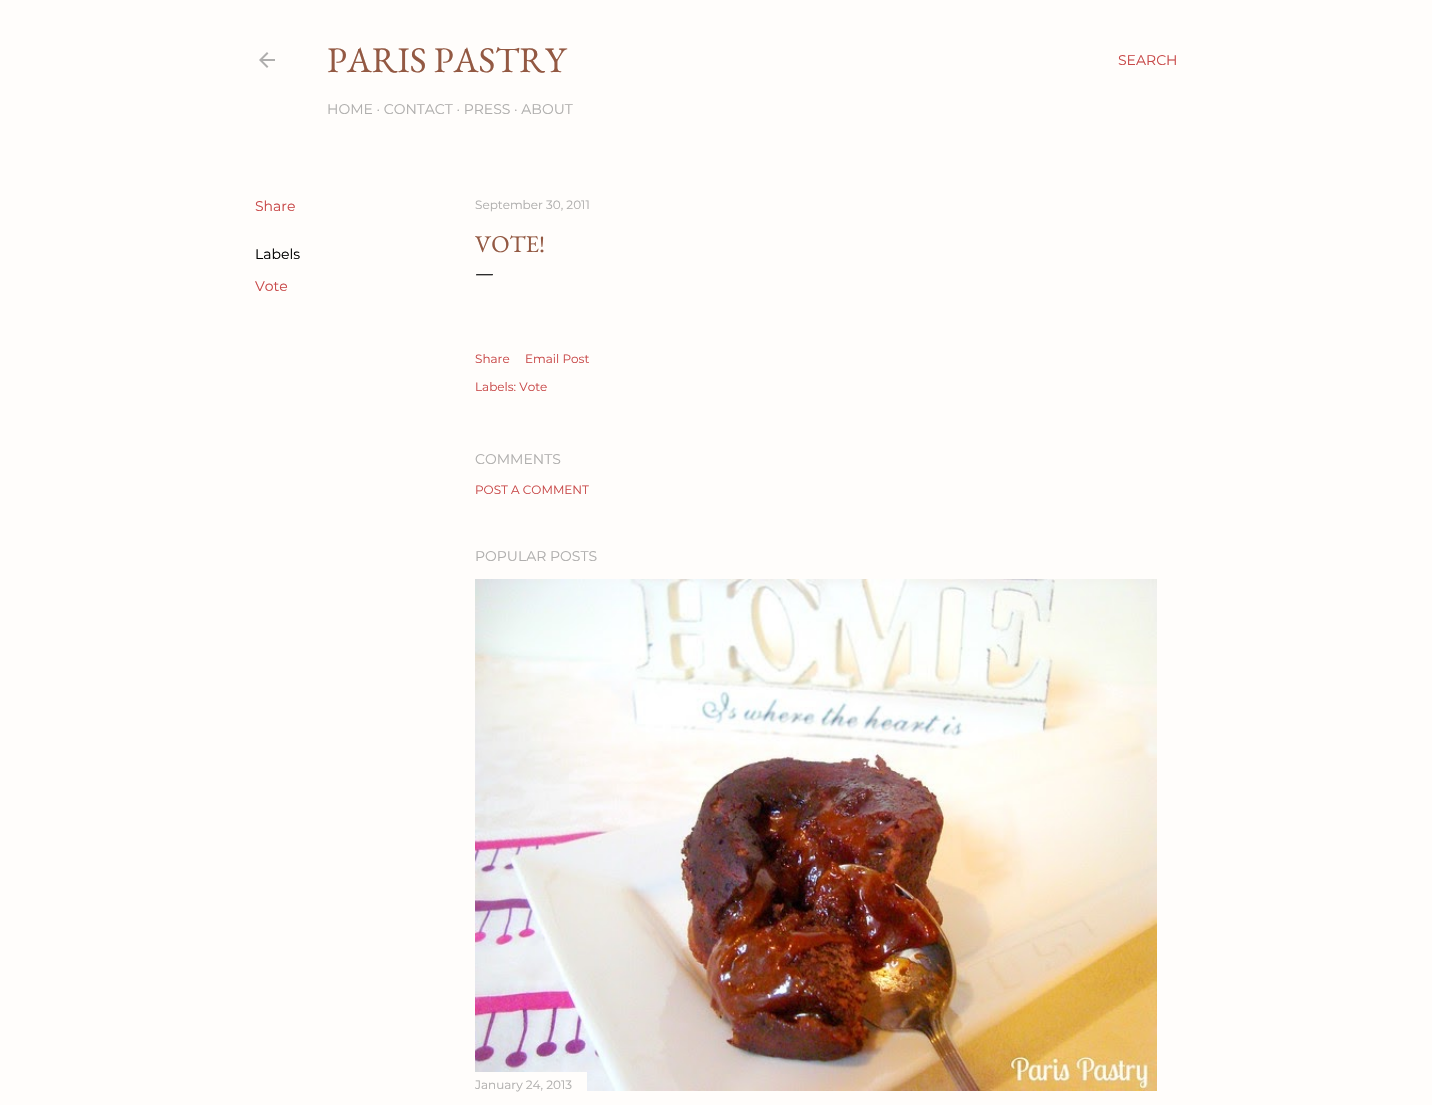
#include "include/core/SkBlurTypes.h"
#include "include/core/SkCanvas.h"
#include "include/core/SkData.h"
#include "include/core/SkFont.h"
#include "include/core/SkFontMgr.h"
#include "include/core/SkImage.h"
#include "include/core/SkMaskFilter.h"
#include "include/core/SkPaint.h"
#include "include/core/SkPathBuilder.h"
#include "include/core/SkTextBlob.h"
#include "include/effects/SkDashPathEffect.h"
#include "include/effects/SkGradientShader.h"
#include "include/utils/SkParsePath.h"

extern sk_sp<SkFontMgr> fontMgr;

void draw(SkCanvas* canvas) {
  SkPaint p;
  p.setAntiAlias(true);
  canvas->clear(SkColorSetRGB(255, 253, 251));
  canvas->drawImageRect(SkImages::DeferredFromEncodedData(SkData::MakeFromFileName("images/1.png")), SkRect::MakeLTRB(259, 52, 275, 68), SkSamplingOptions());
  canvas->drawImageRect(SkImages::DeferredFromEncodedData(SkData::MakeFromFileName("images/2.png")), SkRect::MakeLTRB(475, 579, 1157, 1091), SkSamplingOptions());
  p.setColor(SkColorSetRGB(255, 253, 251));
  canvas->drawRect(SkRect::MakeLTRB(475, 1072, 587, 1091), p);
  SkFont font1(fontMgr->matchFamilyStyle("EB Garamond", SkFontStyle::Normal()), 36);
  font1.setSubpixel(true);
  p.setColor(SkColorSetRGB(147, 89, 67));
  canvas->drawString("PARIS PASTRY", 327, 72, font1, p);
  SkFont font2(fontMgr->matchFamilyStyle("Montserrat", SkFontStyle(100, SkFontStyle::kNormal_Width, SkFontStyle::kUpright_Slant)), 14);
  font2.setSubpixel(true);
  p.setColor(SkColorSetRGB(175, 174, 173));
  canvas->drawString("HOME · CONTACT · PRESS · ABOUT", 327, 114, font2, p);
  p.setColor(SkColorSetRGB(200, 72, 72));
  canvas->drawString("SEARCH", 1118, 65, font2, p);
  canvas->drawString("Share", 255, 211, font2, p);
  p.setColor(SK_ColorBLACK);
  canvas->drawString("Labels", 255, 259, font2, p);
  p.setColor(SkColorSetRGB(200, 72, 72));
  canvas->drawString("Vote", 255, 291, font2, p);
  SkFont font3(fontMgr->matchFamilyStyle("Montserrat", SkFontStyle(100, SkFontStyle::kNormal_Width, SkFontStyle::kUpright_Slant)), 12);
  font3.setSubpixel(true);
  p.setColor(SkColorSetRGB(175, 174, 173));
  canvas->drawString("September 30, 2011", 475, 209, font3, p);
  SkFont font4(fontMgr->matchFamilyStyle("EB Garamond", SkFontStyle::Normal()), 24);
  font4.setSubpixel(true);
  p.setColor(SkColorSetRGB(147, 89, 67));
  canvas->drawString("VOTE!", 475, 252, font4, p);
  SkFont font5(fontMgr->matchFamilyStyle("EB Garamond", SkFontStyle::Normal()), 20);
  font5.setSubpixel(true);
  p.setColor(SK_ColorBLACK);
  canvas->drawString("—", 475, 279, font5, p);
  p.setColor(SkColorSetRGB(200, 72, 72));
  canvas->drawString("Share", 475, 363, font3, p);
  canvas->drawString("Email Post", 525, 363, font3, p);
  canvas->drawString("Labels: Vote", 475, 391, font3, p);
  p.setColor(SkColorSetRGB(175, 174, 173));
  canvas->drawString("COMMENTS", 475, 464, font2, p);
  p.setColor(SkColorSetRGB(200, 72, 72));
  canvas->drawString("POST A COMMENT", 475, 494, font3, p);
  p.setColor(SkColorSetRGB(175, 174, 173));
  canvas->drawString("POPULAR POSTS", 475, 561, font2, p);
  canvas->drawString("January 24, 2013", 475, 1089, font3, p);
}
